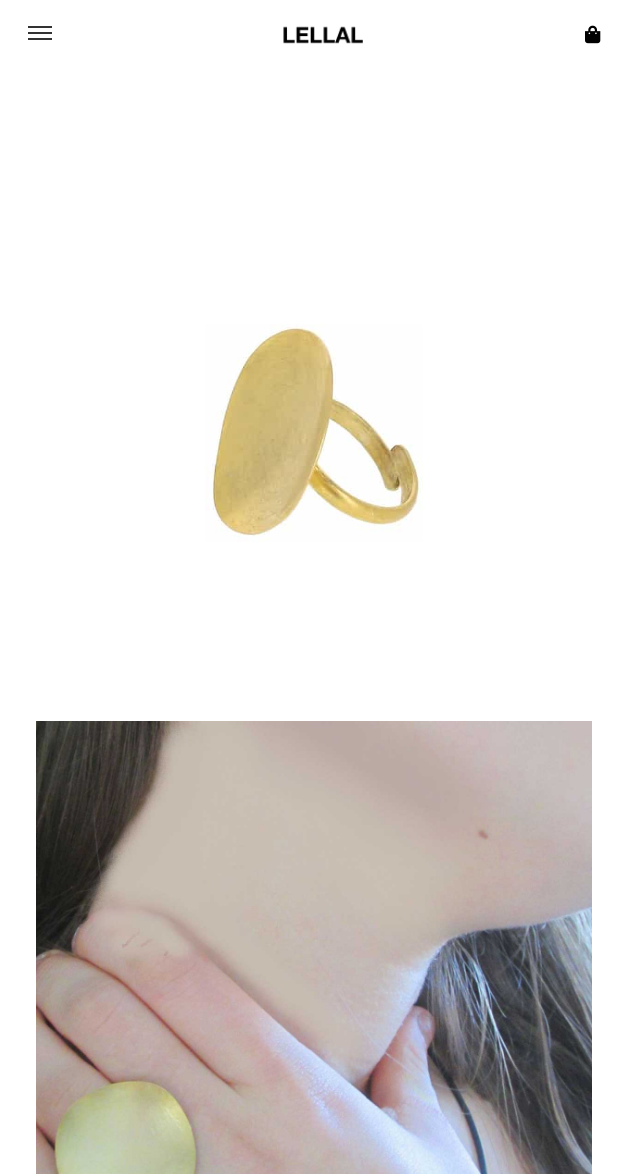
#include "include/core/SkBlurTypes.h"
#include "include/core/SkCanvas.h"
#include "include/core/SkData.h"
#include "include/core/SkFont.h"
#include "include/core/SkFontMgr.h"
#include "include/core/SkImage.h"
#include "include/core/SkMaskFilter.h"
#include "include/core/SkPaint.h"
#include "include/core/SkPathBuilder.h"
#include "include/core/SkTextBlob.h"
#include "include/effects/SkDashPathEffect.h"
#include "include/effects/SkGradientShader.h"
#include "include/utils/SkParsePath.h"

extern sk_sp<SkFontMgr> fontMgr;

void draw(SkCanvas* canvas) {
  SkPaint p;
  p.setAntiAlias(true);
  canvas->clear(SK_ColorWHITE);
  p.setColor(SkColorSetRGB(51, 51, 51));
  canvas->drawRect(SkRect::MakeLTRB(28, 26, 52, 28), p);
  canvas->drawRect(SkRect::MakeLTRB(28, 32, 52, 34), p);
  canvas->drawRect(SkRect::MakeLTRB(28, 38, 52, 40), p);
  canvas->drawImageRect(SkImages::DeferredFromEncodedData(SkData::MakeFromFileName("images/1.png")), SkRect::MakeLTRB(283, 26, 363, 44), SkSamplingOptions());
  canvas->drawImageRect(SkImages::DeferredFromEncodedData(SkData::MakeFromFileName("images/2.png")), SkRect::MakeLTRB(585, 25, 601, 44), SkSamplingOptions());
  canvas->drawImageRect(SkImages::DeferredFromEncodedData(SkData::MakeFromFileName("images/3.png")), SkRect::MakeLTRB(205, 324, 423, 542), SkSamplingOptions());
  canvas->drawImageRect(SkImages::DeferredFromEncodedData(SkData::MakeFromFileName("images/4.png")), SkRect::MakeLTRB(36, 721, 592, 1174), SkSamplingOptions());
}
